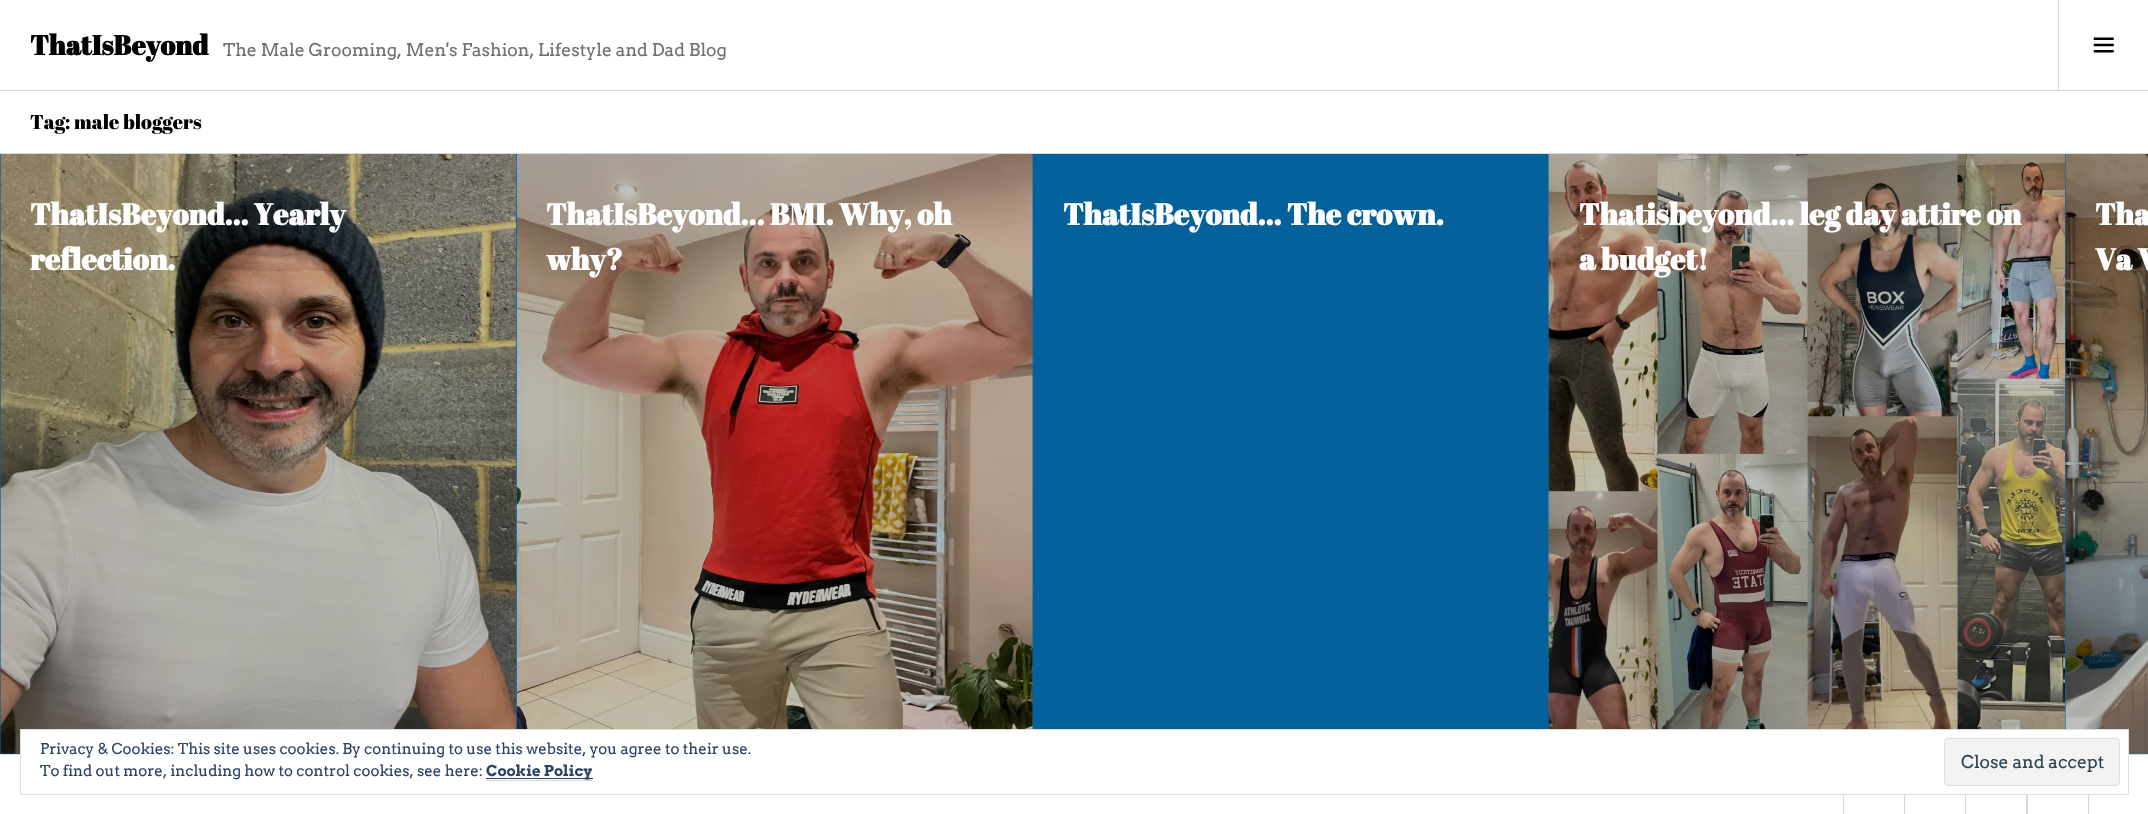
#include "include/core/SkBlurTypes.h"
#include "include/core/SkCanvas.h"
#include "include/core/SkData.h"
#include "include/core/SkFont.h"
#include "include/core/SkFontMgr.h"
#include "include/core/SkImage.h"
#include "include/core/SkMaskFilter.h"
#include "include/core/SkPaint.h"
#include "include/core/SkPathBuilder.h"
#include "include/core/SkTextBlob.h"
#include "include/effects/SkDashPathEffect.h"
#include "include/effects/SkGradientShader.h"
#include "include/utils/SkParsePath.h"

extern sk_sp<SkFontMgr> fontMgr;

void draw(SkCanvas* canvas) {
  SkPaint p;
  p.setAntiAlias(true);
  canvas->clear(SK_ColorWHITE);
  p.setColor(SkColorSetRGB(216, 216, 216));
  canvas->drawRect(SkRect::MakeLTRB(0, 90, 2148, 91), p);
  canvas->drawRect(SkRect::MakeLTRB(2058, 0, 2059, 90), p);
  canvas->drawImageRect(SkImages::DeferredFromEncodedData(SkData::MakeFromFileName("images/1.png")), SkRect::MakeLTRB(2093, 37, 2114, 53), SkSamplingOptions());
  canvas->drawRect(SkRect::MakeLTRB(0, 153, 2148, 154), p);
  p.setColor(SkColorSetRGB(5, 92, 146));
  canvas->drawRect(SkRect::MakeLTRB(0, 154, 20, 754), p);
  canvas->drawImageRect(SkImages::DeferredFromEncodedData(SkData::MakeFromFileName("images/2.png")), SkRect::MakeLTRB(0, 154, 516, 754), SkSamplingOptions());
  p.setColor(SkColorSetRGB(7, 144, 232));
  canvas->drawRect(SkRect::MakeLTRB(516, 154, 1033, 729), p);
  canvas->drawImageRect(SkImages::DeferredFromEncodedData(SkData::MakeFromFileName("images/3.png")), SkRect::MakeLTRB(516, 154, 1033, 729), SkSamplingOptions());
  p.setColor(SkColorSetARGB(64, 0, 0, 0));
  canvas->drawRect(SkRect::MakeLTRB(516, 154, 1033, 729), p);
  p.setColor(SkColorSetRGB(5, 97, 156));
  canvas->drawRect(SkRect::MakeLTRB(1033, 154, 1549, 729), p);
  canvas->drawImageRect(SkImages::DeferredFromEncodedData(SkData::MakeFromFileName("images/4.png")), SkRect::MakeLTRB(1548, 154, 2065, 729), SkSamplingOptions());
  p.setColor(SkColorSetRGB(5, 104, 165));
  canvas->drawRect(SkRect::MakeLTRB(2065, 154, 2148, 754), p);
  canvas->drawImageRect(SkImages::DeferredFromEncodedData(SkData::MakeFromFileName("images/5.png")), SkRect::MakeLTRB(2065, 154, 2148, 754), SkSamplingOptions());
  p.setColor(SkColorSetRGB(216, 216, 216));
  canvas->drawRect(SkRect::MakeLTRB(0, 754, 2148, 755), p);
  p.setStyle(SkPaint::kStroke_Style);
  p.setStrokeWidth(1);
  canvas->drawRect(SkRect::MakeLTRB(1843.5f, 754.5f, 1904.5f, 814.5f), p);
  canvas->drawRect(SkRect::MakeLTRB(1904.5f, 754.5f, 1965.5f, 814.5f), p);
  canvas->drawRect(SkRect::MakeLTRB(1965.5f, 754.5f, 2027.5f, 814.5f), p);
  canvas->drawRect(SkRect::MakeLTRB(2026.5f, 754.5f, 2088.5f, 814.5f), p);
  p.setStyle(SkPaint::kFill_Style);
  p.setColor(SK_ColorWHITE);
  canvas->drawRect(SkRect::MakeLTRB(20.5f, 729.5f, 2128.5f, 794.5f), p);
  p.setStyle(SkPaint::kStroke_Style);
  p.setColor(SkColorSetRGB(222, 222, 222));
  canvas->drawRect(SkRect::MakeLTRB(20.5f, 729.5f, 2128.5f, 794.5f), p);
  p.setStyle(SkPaint::kFill_Style);
  p.setColor(SkColorSetRGB(216, 216, 216));
  canvas->drawRect(SkRect::MakeLTRB(486, 780, 593, 781), p);
  p.setColor(SkColorSetRGB(46, 68, 103));
  canvas->drawRect(SkRect::MakeLTRB(486, 778, 593, 779), p);
  p.setColor(SkColorSetRGB(243, 243, 243));
  canvas->drawRoundRect(SkRect::MakeLTRB(1944.5f, 738.5f, 2119.5f, 785.5f), 3.5f, 3.5f, p);
  p.setStyle(SkPaint::kStroke_Style);
  p.setColor(SkColorSetRGB(222, 222, 222));
  canvas->drawRoundRect(SkRect::MakeLTRB(1944.5f, 738.5f, 2119.5f, 785.5f), 3.5f, 3.5f, p);
  SkFont font1(fontMgr->matchFamilyStyle("Abril Fatface", SkFontStyle::Bold()), 27.5f);
  font1.setSubpixel(true);
  p.setStyle(SkPaint::kFill_Style);
  p.setColor(SK_ColorBLACK);
  canvas->drawString("ThatIsBeyond", 30, 55, font1, p);
  SkFont font2(fontMgr->matchFamilyStyle("Arvo", SkFontStyle::Normal()), 17.5f);
  font2.setSubpixel(true);
  p.setColor(SkColorSetRGB(112, 112, 112));
  canvas->drawString("The Male Grooming, Men's Fashion, Lifestyle and Dad Blog", 223, 56, font2, p);
  SkFont font3(fontMgr->matchFamilyStyle("Abril Fatface", SkFontStyle::Normal()), 20);
  font3.setSubpixel(true);
  p.setColor(SK_ColorBLACK);
  canvas->drawString("Tag: male bloggers", 30, 129, font3, p);
  SkFont font4(fontMgr->matchFamilyStyle("Abril Fatface", SkFontStyle::Bold()), 30);
  font4.setSubpixel(true);
  p.setColor(SK_ColorWHITE);
  canvas->drawString("ThatIsBeyond… Yearly", 30, 225, font4, p);
  canvas->drawString("reflection.", 30, 270, font4, p);
  canvas->drawString("ThatIsBeyond… BMI. Why, oh", 546, 225, font4, p);
  canvas->drawString("why?", 546, 270, font4, p);
  canvas->drawString("ThatIsBeyond… The crown.", 1063, 225, font4, p);
  canvas->drawString("Thatisbeyond… leg day attire on", 1579, 225, font4, p);
  canvas->drawString("a budget!", 1579, 270, font4, p);
  canvas->drawString("Tha", 2095, 225, font4, p);
  canvas->drawString("Va V", 2095, 270, font4, p);
  SkFont font5(fontMgr->matchFamilyStyle("Arvo", SkFontStyle::Normal()), 15);
  font5.setSubpixel(true);
  p.setColor(SkColorSetRGB(46, 68, 103));
  canvas->drawString("Privacy & Cookies: This site uses cookies. By continuing to use this website, you agree to their use.", 40, 754, font5, p);
  canvas->drawString("To find out more, including how to control cookies, see here:", 40, 776, font5, p);
  SkFont font6(fontMgr->matchFamilyStyle("Arvo", SkFontStyle::Bold()), 15);
  font6.setSubpixel(true);
  canvas->drawString("Cookie Policy", 486, 776, font6, p);
  p.setColor(SkColorSetRGB(46, 68, 83));
  canvas->drawString("Close and accept", 1961, 768, font2, p);
}
